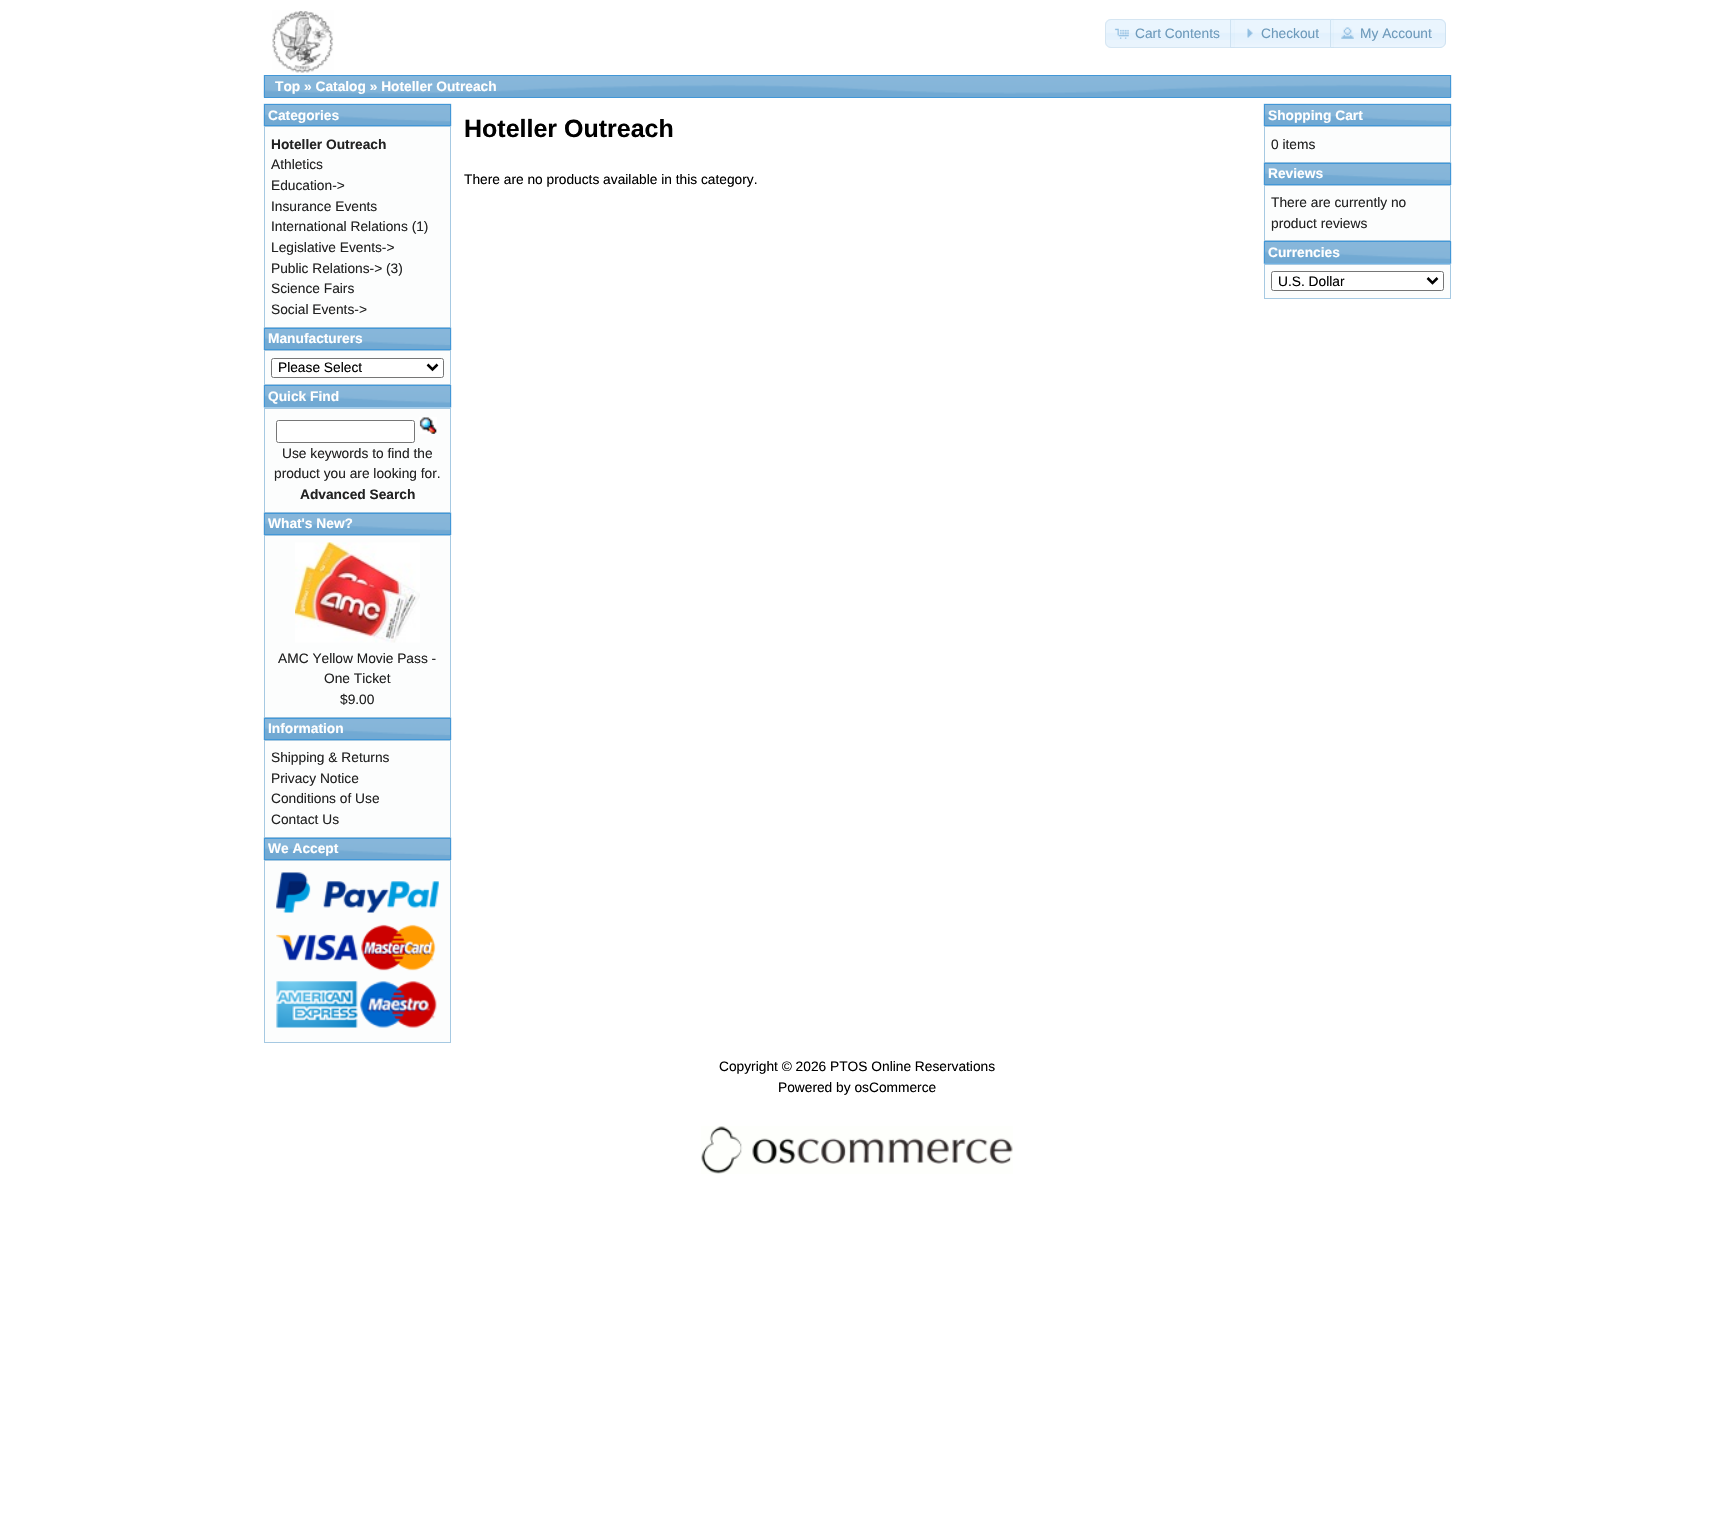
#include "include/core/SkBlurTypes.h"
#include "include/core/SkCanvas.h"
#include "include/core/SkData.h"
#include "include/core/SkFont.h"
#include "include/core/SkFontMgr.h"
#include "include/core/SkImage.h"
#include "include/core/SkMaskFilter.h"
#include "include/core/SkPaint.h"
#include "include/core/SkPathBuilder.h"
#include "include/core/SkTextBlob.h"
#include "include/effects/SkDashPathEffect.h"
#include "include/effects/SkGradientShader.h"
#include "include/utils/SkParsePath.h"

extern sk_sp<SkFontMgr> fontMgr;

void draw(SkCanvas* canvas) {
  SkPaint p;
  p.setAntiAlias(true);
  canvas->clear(SK_ColorWHITE);
  canvas->drawImageRect(SkImages::DeferredFromEncodedData(SkData::MakeFromFileName("images/1.png")), SkRect::MakeLTRB(272, 10, 334, 73), SkSamplingOptions());
  p.setColor(SkColorSetRGB(233, 244, 253));
  canvas->drawPath(SkPathBuilder().moveTo(1111, 19).lineTo(1235, 19).lineTo(1235, 48).lineTo(1111, 48).cubicTo(1107.5f, 48, 1105, 45.5f, 1105, 42).lineTo(1105, 25).cubicTo(1105, 21.5f, 1107.5f, 19, 1111, 19).close().detach(), p);
  canvas->drawImageRect(SkImages::DeferredFromEncodedData(SkData::MakeFromFileName("images/2.png")), SkRect::MakeLTRB(1105, 19, 1234, 40), SkSamplingOptions());
  p.setStyle(SkPaint::kStroke_Style);
  p.setStrokeWidth(1);
  p.setColor(SkColorSetRGB(214, 230, 242));
  canvas->drawPath(SkPathBuilder().moveTo(1111, 19.5f).lineTo(1234.5f, 19.5f).lineTo(1234.5f, 47.5f).lineTo(1111, 47.5f).cubicTo(1108, 47.5f, 1105.5f, 45, 1105.5f, 42).lineTo(1105.5f, 25).cubicTo(1105.5f, 22, 1108, 19.5f, 1111, 19.5f).close().detach(), p);
  canvas->drawImageRect(SkImages::DeferredFromEncodedData(SkData::MakeFromFileName("images/3.png")), SkRect::MakeLTRB(1114, 28, 1129, 39), SkSamplingOptions());
  p.setStyle(SkPaint::kFill_Style);
  p.setColor(SkColorSetARGB(179, 223, 239, 252));
  canvas->drawRect(SkRect::MakeLTRB(1230, 19, 1334, 48), p);
  canvas->drawImageRect(SkImages::DeferredFromEncodedData(SkData::MakeFromFileName("images/4.png")), SkRect::MakeLTRB(1230, 18, 1334, 48), SkSamplingOptions());
  p.setStyle(SkPaint::kStroke_Style);
  p.setColor(SkColorSetARGB(179, 197, 219, 236));
  canvas->drawRect(SkRect::MakeLTRB(1230.5f, 19.5f, 1333.5f, 47.5f), p);
  canvas->drawImageRect(SkImages::DeferredFromEncodedData(SkData::MakeFromFileName("images/5.png")), SkRect::MakeLTRB(1247, 28, 1253, 38), SkSamplingOptions());
  p.setStyle(SkPaint::kFill_Style);
  p.setColor(SkColorSetARGB(179, 223, 239, 252));
  canvas->drawPath(SkPathBuilder().moveTo(1330, 19).lineTo(1440, 19).cubicTo(1443.5f, 19, 1446, 21.5f, 1446, 25).lineTo(1446, 42).cubicTo(1446, 45.5f, 1443.5f, 48, 1440, 48).lineTo(1330, 48).close().detach(), p);
  canvas->drawImageRect(SkImages::DeferredFromEncodedData(SkData::MakeFromFileName("images/6.png")), SkRect::MakeLTRB(1330, 19, 1446, 47), SkSamplingOptions());
  p.setStyle(SkPaint::kStroke_Style);
  p.setColor(SkColorSetARGB(179, 197, 219, 236));
  canvas->drawPath(SkPathBuilder().moveTo(1330.5f, 19.5f).lineTo(1440, 19.5f).cubicTo(1443, 19.5f, 1445.5f, 22, 1445.5f, 25).lineTo(1445.5f, 42).cubicTo(1445.5f, 45, 1443, 47.5f, 1440, 47.5f).lineTo(1330.5f, 47.5f).close().detach(), p);
  canvas->drawImageRect(SkImages::DeferredFromEncodedData(SkData::MakeFromFileName("images/7.png")), SkRect::MakeLTRB(1341, 27, 1354, 39), SkSamplingOptions());
  canvas->drawImageRect(SkImages::DeferredFromEncodedData(SkData::MakeFromFileName("images/8.png")), SkRect::MakeLTRB(263, 75, 1452, 98), SkSamplingOptions());
  p.setColor(SkColorSetRGB(66, 151, 215));
  canvas->drawRect(SkRect::MakeLTRB(264.5f, 75.5f, 1450.5f, 97.5f), p);
  canvas->drawImageRect(SkImages::DeferredFromEncodedData(SkData::MakeFromFileName("images/9.png")), SkRect::MakeLTRB(263, 103, 452, 127), SkSamplingOptions());
  canvas->drawRect(SkRect::MakeLTRB(264.5f, 104.5f, 450.5f, 125.5f), p);
  p.setStyle(SkPaint::kFill_Style);
  p.setColor(SkColorSetRGB(252, 253, 253));
  canvas->drawRect(SkRect::MakeLTRB(264.5f, 126.5f, 450.5f, 327.5f), p);
  p.setStyle(SkPaint::kStroke_Style);
  p.setColor(SkColorSetRGB(166, 201, 226));
  canvas->drawRect(SkRect::MakeLTRB(264.5f, 126.5f, 450.5f, 327.5f), p);
  canvas->drawImageRect(SkImages::DeferredFromEncodedData(SkData::MakeFromFileName("images/10.png")), SkRect::MakeLTRB(263, 327, 452, 350), SkSamplingOptions());
  p.setColor(SkColorSetRGB(66, 151, 215));
  canvas->drawRect(SkRect::MakeLTRB(264.5f, 328.5f, 450.5f, 349.5f), p);
  p.setStyle(SkPaint::kFill_Style);
  p.setColor(SkColorSetRGB(252, 253, 253));
  canvas->drawRect(SkRect::MakeLTRB(264.5f, 350.5f, 450.5f, 384.5f), p);
  p.setStyle(SkPaint::kStroke_Style);
  p.setColor(SkColorSetRGB(166, 201, 226));
  canvas->drawRect(SkRect::MakeLTRB(264.5f, 350.5f, 450.5f, 384.5f), p);
  p.setStyle(SkPaint::kFill_Style);
  p.setColor(SK_ColorWHITE);
  canvas->drawRoundRect(SkRect::MakeLTRB(271.5f, 358.5f, 443.5f, 377.5f), 2, 2, p);
  p.setStyle(SkPaint::kStroke_Style);
  p.setColor(SkColorSetRGB(118, 118, 118));
  canvas->drawRoundRect(SkRect::MakeLTRB(271.5f, 358.5f, 443.5f, 377.5f), 2, 2, p);
  p.setStrokeWidth(2.5f);
  p.setColor(SK_ColorBLACK);
  canvas->drawPath(SkPathBuilder().moveTo(427.5f, 364.5f).lineTo(432.5f, 369.5f).lineTo(437.5f, 364.5f).detach(), p);
  canvas->drawImageRect(SkImages::DeferredFromEncodedData(SkData::MakeFromFileName("images/11.png")), SkRect::MakeLTRB(263, 385, 452, 408), SkSamplingOptions());
  p.setStrokeWidth(1);
  p.setColor(SkColorSetRGB(66, 151, 215));
  canvas->drawRect(SkRect::MakeLTRB(264.5f, 385.5f, 450.5f, 407.5f), p);
  p.setStyle(SkPaint::kFill_Style);
  p.setColor(SkColorSetRGB(252, 253, 253));
  canvas->drawRect(SkRect::MakeLTRB(264.5f, 408.5f, 450.5f, 512.5f), p);
  p.setStyle(SkPaint::kStroke_Style);
  p.setColor(SkColorSetRGB(166, 201, 226));
  canvas->drawRect(SkRect::MakeLTRB(264.5f, 408.5f, 450.5f, 512.5f), p);
  p.setStyle(SkPaint::kFill_Style);
  p.setColor(SkColorSetRGB(159, 202, 234));
  canvas->drawRect(SkRect::MakeLTRB(264, 407, 451, 408), p);
  p.setColor(SK_ColorWHITE);
  canvas->drawRoundRect(SkRect::MakeLTRB(276.5f, 420.5f, 414.5f, 442.5f), 2, 2, p);
  p.setStyle(SkPaint::kStroke_Style);
  p.setColor(SkColorSetRGB(118, 118, 118));
  canvas->drawRoundRect(SkRect::MakeLTRB(276.5f, 420.5f, 414.5f, 442.5f), 2, 2, p);
  canvas->drawImageRect(SkImages::DeferredFromEncodedData(SkData::MakeFromFileName("images/12.png")), SkRect::MakeLTRB(419, 417, 437, 434), SkSamplingOptions());
  canvas->drawImageRect(SkImages::DeferredFromEncodedData(SkData::MakeFromFileName("images/10.png")), SkRect::MakeLTRB(263, 512, 452, 535), SkSamplingOptions());
  p.setColor(SkColorSetRGB(66, 151, 215));
  canvas->drawRect(SkRect::MakeLTRB(264.5f, 513.5f, 450.5f, 534.5f), p);
  p.setStyle(SkPaint::kFill_Style);
  p.setColor(SkColorSetRGB(252, 253, 253));
  canvas->drawRect(SkRect::MakeLTRB(264.5f, 535.5f, 450.5f, 717.5f), p);
  p.setStyle(SkPaint::kStroke_Style);
  p.setColor(SkColorSetRGB(166, 201, 226));
  canvas->drawRect(SkRect::MakeLTRB(264.5f, 535.5f, 450.5f, 717.5f), p);
  canvas->drawImageRect(SkImages::DeferredFromEncodedData(SkData::MakeFromFileName("images/13.png")), SkRect::MakeLTRB(295, 542, 420, 643), SkSamplingOptions());
  canvas->drawImageRect(SkImages::DeferredFromEncodedData(SkData::MakeFromFileName("images/10.png")), SkRect::MakeLTRB(263, 717, 452, 740), SkSamplingOptions());
  p.setColor(SkColorSetRGB(66, 151, 215));
  canvas->drawRect(SkRect::MakeLTRB(264.5f, 718.5f, 450.5f, 739.5f), p);
  p.setStyle(SkPaint::kFill_Style);
  p.setColor(SkColorSetRGB(252, 253, 253));
  canvas->drawRect(SkRect::MakeLTRB(264.5f, 740.5f, 450.5f, 837.5f), p);
  p.setStyle(SkPaint::kStroke_Style);
  p.setColor(SkColorSetRGB(166, 201, 226));
  canvas->drawRect(SkRect::MakeLTRB(264.5f, 740.5f, 450.5f, 837.5f), p);
  canvas->drawImageRect(SkImages::DeferredFromEncodedData(SkData::MakeFromFileName("images/10.png")), SkRect::MakeLTRB(263, 837, 452, 860), SkSamplingOptions());
  p.setColor(SkColorSetRGB(66, 151, 215));
  canvas->drawRect(SkRect::MakeLTRB(264.5f, 838.5f, 450.5f, 859.5f), p);
  p.setStyle(SkPaint::kFill_Style);
  p.setColor(SkColorSetRGB(252, 253, 253));
  canvas->drawRect(SkRect::MakeLTRB(264.5f, 860.5f, 450.5f, 1042.5f), p);
  p.setStyle(SkPaint::kStroke_Style);
  p.setColor(SkColorSetRGB(166, 201, 226));
  canvas->drawRect(SkRect::MakeLTRB(264.5f, 860.5f, 450.5f, 1042.5f), p);
  canvas->drawImageRect(SkImages::DeferredFromEncodedData(SkData::MakeFromFileName("images/14.png")), SkRect::MakeLTRB(276, 872, 439, 913), SkSamplingOptions());
  canvas->drawImageRect(SkImages::DeferredFromEncodedData(SkData::MakeFromFileName("images/15.png")), SkRect::MakeLTRB(276, 934, 358, 961), SkSamplingOptions());
  canvas->drawImageRect(SkImages::DeferredFromEncodedData(SkData::MakeFromFileName("images/16.png")), SkRect::MakeLTRB(361, 924, 436, 971), SkSamplingOptions());
  canvas->drawImageRect(SkImages::DeferredFromEncodedData(SkData::MakeFromFileName("images/17.png")), SkRect::MakeLTRB(276, 981, 358, 1028), SkSamplingOptions());
  canvas->drawImageRect(SkImages::DeferredFromEncodedData(SkData::MakeFromFileName("images/18.png")), SkRect::MakeLTRB(359, 981, 437, 1028), SkSamplingOptions());
  canvas->drawImageRect(SkImages::DeferredFromEncodedData(SkData::MakeFromFileName("images/9.png")), SkRect::MakeLTRB(1263, 103, 1452, 127), SkSamplingOptions());
  p.setColor(SkColorSetRGB(66, 151, 215));
  canvas->drawRect(SkRect::MakeLTRB(1264.5f, 104.5f, 1450.5f, 125.5f), p);
  p.setStyle(SkPaint::kFill_Style);
  p.setColor(SkColorSetRGB(252, 253, 253));
  canvas->drawRect(SkRect::MakeLTRB(1264.5f, 126.5f, 1450.5f, 162.5f), p);
  p.setStyle(SkPaint::kStroke_Style);
  p.setColor(SkColorSetRGB(166, 201, 226));
  canvas->drawRect(SkRect::MakeLTRB(1264.5f, 126.5f, 1450.5f, 162.5f), p);
  canvas->drawImageRect(SkImages::DeferredFromEncodedData(SkData::MakeFromFileName("images/19.png")), SkRect::MakeLTRB(1263, 162, 1452, 185), SkSamplingOptions());
  p.setColor(SkColorSetRGB(66, 151, 215));
  canvas->drawRect(SkRect::MakeLTRB(1264.5f, 163.5f, 1450.5f, 184.5f), p);
  p.setStyle(SkPaint::kFill_Style);
  p.setColor(SkColorSetRGB(252, 253, 253));
  canvas->drawRect(SkRect::MakeLTRB(1264.5f, 185.5f, 1450.5f, 240.5f), p);
  p.setStyle(SkPaint::kStroke_Style);
  p.setColor(SkColorSetRGB(166, 201, 226));
  canvas->drawRect(SkRect::MakeLTRB(1264.5f, 185.5f, 1450.5f, 240.5f), p);
  canvas->drawImageRect(SkImages::DeferredFromEncodedData(SkData::MakeFromFileName("images/20.png")), SkRect::MakeLTRB(1263, 241, 1452, 264), SkSamplingOptions());
  p.setColor(SkColorSetRGB(66, 151, 215));
  canvas->drawRect(SkRect::MakeLTRB(1264.5f, 241.5f, 1450.5f, 263.5f), p);
  p.setStyle(SkPaint::kFill_Style);
  p.setColor(SkColorSetRGB(252, 253, 253));
  canvas->drawRect(SkRect::MakeLTRB(1264.5f, 264.5f, 1450.5f, 298.5f), p);
  p.setStyle(SkPaint::kStroke_Style);
  p.setColor(SkColorSetRGB(166, 201, 226));
  canvas->drawRect(SkRect::MakeLTRB(1264.5f, 264.5f, 1450.5f, 298.5f), p);
  p.setStyle(SkPaint::kFill_Style);
  p.setColor(SkColorSetRGB(113, 177, 225));
  canvas->drawRect(SkRect::MakeLTRB(1264, 263, 1451, 264), p);
  p.setColor(SK_ColorWHITE);
  canvas->drawRoundRect(SkRect::MakeLTRB(1271.5f, 271.5f, 1443.5f, 290.5f), 2, 2, p);
  p.setStyle(SkPaint::kStroke_Style);
  p.setColor(SkColorSetRGB(118, 118, 118));
  canvas->drawRoundRect(SkRect::MakeLTRB(1271.5f, 271.5f, 1443.5f, 290.5f), 2, 2, p);
  p.setStrokeWidth(2.5f);
  p.setColor(SK_ColorBLACK);
  canvas->drawPath(SkPathBuilder().moveTo(1427.5f, 278).lineTo(1432.5f, 283).lineTo(1437.5f, 278).detach(), p);
  canvas->drawImageRect(SkImages::DeferredFromEncodedData(SkData::MakeFromFileName("images/21.png")), SkRect::MakeLTRB(701, 1126, 1013, 1174), SkSamplingOptions());
  SkFont font1(fontMgr->matchFamilyStyle("Liberation Sans", SkFontStyle::Normal()), 13.75f);
  font1.setSubpixel(true);
  p.setStyle(SkPaint::kFill_Style);
  p.setColor(SkColorSetRGB(109, 154, 187));
  canvas->drawString("Cart Contents", 1135, 38, font1, p);
  canvas->drawString("Checkout", 1261, 38, font1, p);
  canvas->drawString("My Account", 1360, 38, font1, p);
  SkFont font2(fontMgr->matchFamilyStyle("Liberation Sans", SkFontStyle::Bold()), 13.75f);
  font2.setSubpixel(true);
  p.setColor(SK_ColorWHITE);
  canvas->drawString("Top » Catalog » Hoteller Outreach", 275, 91, font2, p);
  canvas->drawString("Categories", 268, 120, font2, p);
  p.setColor(SkColorSetRGB(34, 34, 34));
  canvas->drawString("Hoteller Outreach", 271, 149, font2, p);
  canvas->drawString("Athletics", 271, 169, font1, p);
  canvas->drawString("Education->", 271, 190, font1, p);
  canvas->drawString("Insurance Events", 271, 211, font1, p);
  canvas->drawString("International Relations (1)", 271, 231, font1, p);
  canvas->drawString("Legislative Events->", 271, 252, font1, p);
  canvas->drawString("Public Relations-> (3)", 271, 273, font1, p);
  canvas->drawString("Science Fairs", 271, 293, font1, p);
  canvas->drawString("Social Events->", 271, 314, font1, p);
  p.setColor(SK_ColorWHITE);
  canvas->drawString("Manufacturers", 268, 343, font2, p);
  p.setColor(SK_ColorBLACK);
  canvas->drawString("Please Select", 278, 372, font1, p);
  p.setColor(SK_ColorWHITE);
  canvas->drawString("Quick Find", 268, 401, font2, p);
  p.setColor(SkColorSetRGB(34, 34, 34));
  canvas->drawString("Use keywords to find the", 282, 458, font1, p);
  canvas->drawString("product you are looking for.", 274, 478, font1, p);
  canvas->drawString("Advanced Search", 300, 499, font2, p);
  p.setColor(SK_ColorWHITE);
  canvas->drawString("What's New?", 268, 528, font2, p);
  p.setColor(SkColorSetRGB(34, 34, 34));
  canvas->drawString("AMC Yellow Movie Pass -", 278, 663, font1, p);
  canvas->drawString("One Ticket", 324, 683, font1, p);
  canvas->drawString("$9.00", 340, 704, font1, p);
  p.setColor(SK_ColorWHITE);
  canvas->drawString("Information", 268, 733, font2, p);
  p.setColor(SkColorSetRGB(34, 34, 34));
  canvas->drawString("Shipping & Returns", 271, 762, font1, p);
  canvas->drawString("Privacy Notice", 271, 783, font1, p);
  canvas->drawString("Conditions of Use", 271, 803, font1, p);
  canvas->drawString("Contact Us", 271, 824, font1, p);
  p.setColor(SK_ColorWHITE);
  canvas->drawString("We Accept", 268, 853, font2, p);
  SkFont font3(fontMgr->matchFamilyStyle("Liberation Sans", SkFontStyle::Bold()), 25);
  font3.setSubpixel(true);
  p.setColor(SK_ColorBLACK);
  canvas->drawString("Hoteller Outreach", 464, 137, font3, p);
  canvas->drawString("There are no products available in this category.", 464, 184, font1, p);
  p.setColor(SK_ColorWHITE);
  canvas->drawString("Shopping Cart", 1268, 120, font2, p);
  p.setColor(SkColorSetRGB(34, 34, 34));
  canvas->drawString("0 items", 1271, 149, font1, p);
  p.setColor(SK_ColorWHITE);
  canvas->drawString("Reviews", 1268, 178, font2, p);
  p.setColor(SkColorSetRGB(34, 34, 34));
  canvas->drawString("There are currently no", 1271, 207, font1, p);
  canvas->drawString("product reviews", 1271, 228, font1, p);
  p.setColor(SK_ColorWHITE);
  canvas->drawString("Currencies", 1268, 257, font2, p);
  p.setColor(SK_ColorBLACK);
  canvas->drawString("U.S. Dollar", 1278, 286, font1, p);
  canvas->drawString("Copyright © 2026 PTOS Online Reservations", 719, 1071, font1, p);
  canvas->drawString("Powered by osCommerce", 778, 1092, font1, p);
}
